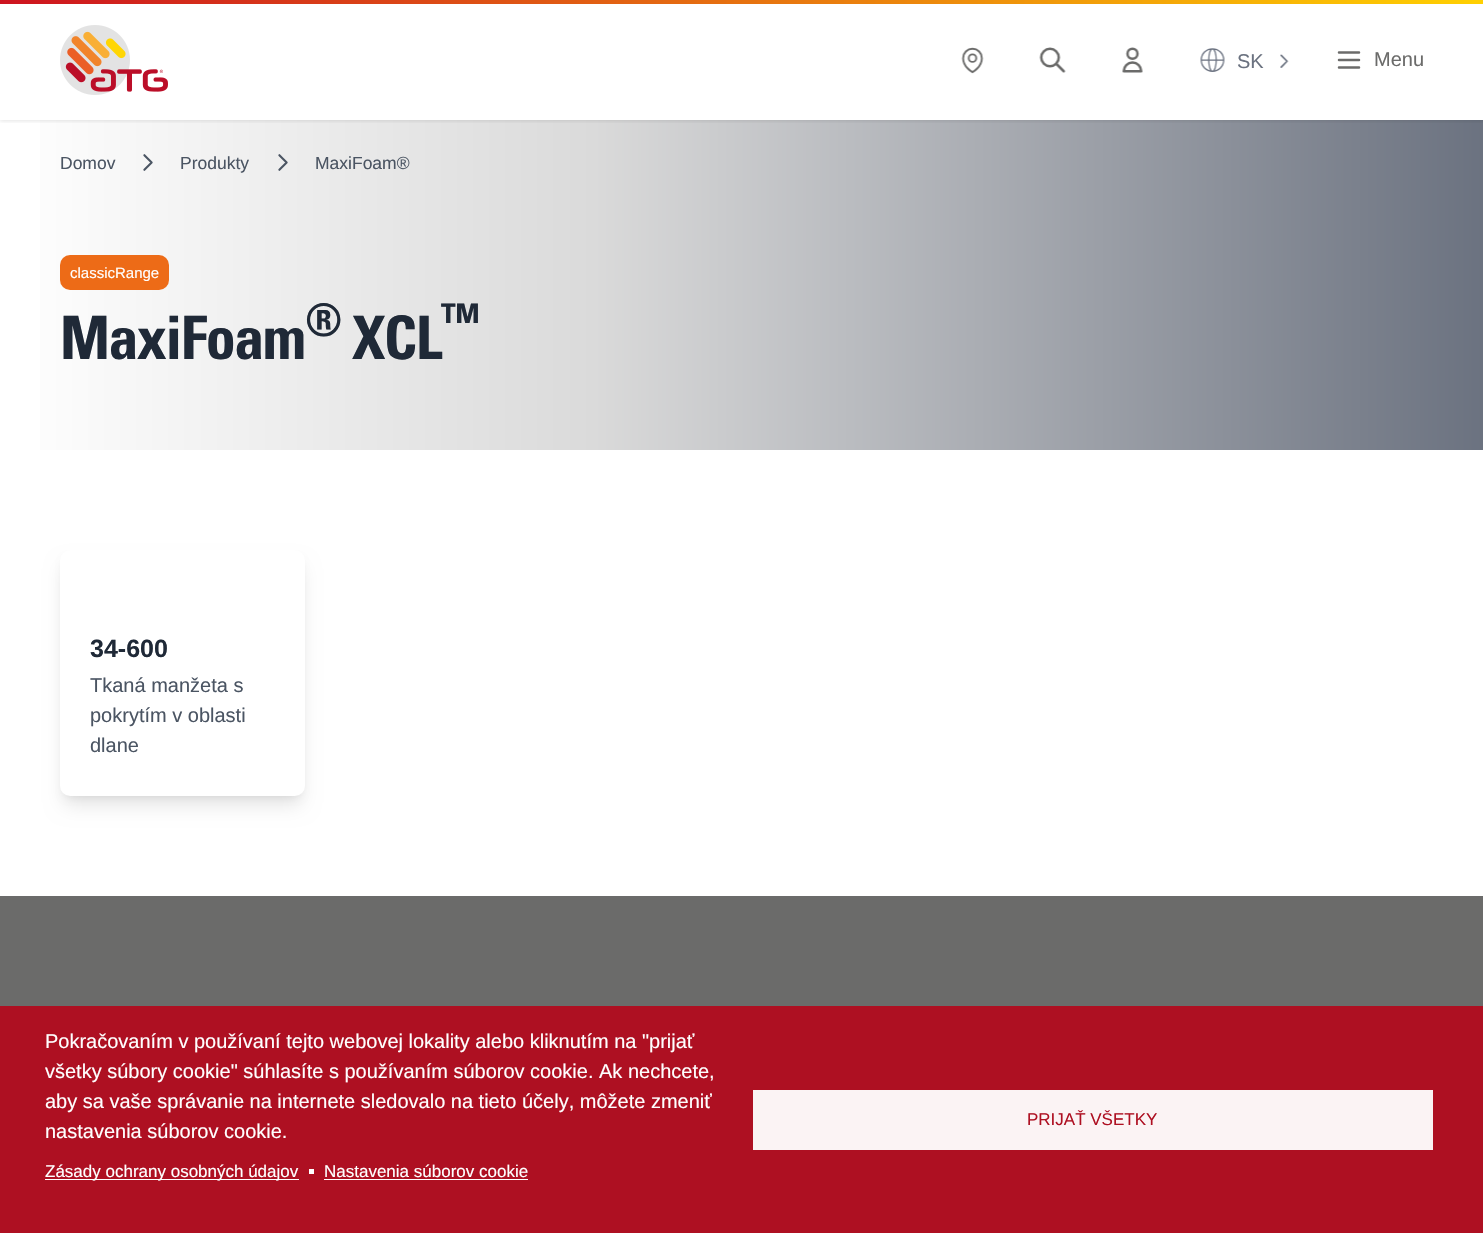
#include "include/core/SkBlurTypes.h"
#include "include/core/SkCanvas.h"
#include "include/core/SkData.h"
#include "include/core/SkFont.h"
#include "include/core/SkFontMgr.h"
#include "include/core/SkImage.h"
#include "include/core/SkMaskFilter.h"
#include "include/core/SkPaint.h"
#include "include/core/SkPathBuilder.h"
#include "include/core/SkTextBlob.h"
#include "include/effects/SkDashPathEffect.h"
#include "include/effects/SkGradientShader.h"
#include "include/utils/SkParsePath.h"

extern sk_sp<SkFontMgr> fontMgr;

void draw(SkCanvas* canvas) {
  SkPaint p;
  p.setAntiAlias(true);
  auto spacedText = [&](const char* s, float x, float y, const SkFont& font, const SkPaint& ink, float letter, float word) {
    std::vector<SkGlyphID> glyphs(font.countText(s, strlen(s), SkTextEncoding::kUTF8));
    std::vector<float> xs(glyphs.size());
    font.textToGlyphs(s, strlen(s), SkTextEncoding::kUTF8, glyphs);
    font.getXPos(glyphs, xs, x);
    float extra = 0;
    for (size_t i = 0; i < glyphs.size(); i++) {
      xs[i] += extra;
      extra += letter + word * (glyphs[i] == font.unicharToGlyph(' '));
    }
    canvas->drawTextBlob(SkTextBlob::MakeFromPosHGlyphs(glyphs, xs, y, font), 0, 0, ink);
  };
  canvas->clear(SK_ColorWHITE);
  {
    const SkColor colors[] = {SkColorSetRGB(107, 114, 128), SkColorSetRGB(218, 218, 218), SK_ColorWHITE};
    const float stops[] = {0, 0.6f, 1};
    const SkPoint ends[] = {{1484, 285}, {0, 285}};
    p.setShader(SkGradientShader::MakeLinear(ends, colors, stops, 3, SkTileMode::kClamp));
    p.setAlpha(255);
  }
  canvas->drawRect(SkRect::MakeLTRB(40, 120, 1483, 450), p);
  canvas->save();
  canvas->clipRect(SkRect::MakeLTRB(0, 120, 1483, 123));
  p.setShader(nullptr);
  p.setColor(SkColorSetARGB(26, 0, 0, 0));
  p.setMaskFilter(SkMaskFilter::MakeBlur(kNormal_SkBlurStyle, 2));
  canvas->drawRect(SkRect::MakeLTRB(0, 1, 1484, 121), p);
  p.setMaskFilter(nullptr);
  canvas->restore();
  {
    const SkColor colors[] = {SkColorSetRGB(205, 19, 31), SkColorSetRGB(255, 208, 1)};
    const float stops[] = {0, 1};
    const SkPoint ends[] = {{0, 1.9f}, {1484, 1.9f}};
    p.setShader(SkGradientShader::MakeLinear(ends, colors, stops, 2, SkTileMode::kClamp));
    p.setAlpha(255);
  }
  canvas->drawRect(SkRect::MakeLTRB(0, 0, 1483, 4), p);
  canvas->drawImageRect(SkImages::DeferredFromEncodedData(SkData::MakeFromFileName("images/1.png")), SkRect::MakeLTRB(60, 25, 168, 95), SkSamplingOptions());
  canvas->drawImageRect(SkImages::DeferredFromEncodedData(SkData::MakeFromFileName("images/2.png")), SkRect::MakeLTRB(961, 47, 984, 74), SkSamplingOptions());
  canvas->drawImageRect(SkImages::DeferredFromEncodedData(SkData::MakeFromFileName("images/3.png")), SkRect::MakeLTRB(1039, 47, 1066, 73), SkSamplingOptions());
  canvas->drawImageRect(SkImages::DeferredFromEncodedData(SkData::MakeFromFileName("images/4.png")), SkRect::MakeLTRB(1122, 47, 1143, 73), SkSamplingOptions());
  canvas->drawImageRect(SkImages::DeferredFromEncodedData(SkData::MakeFromFileName("images/5.png")), SkRect::MakeLTRB(1200, 48, 1225, 72), SkSamplingOptions());
  canvas->drawImageRect(SkImages::DeferredFromEncodedData(SkData::MakeFromFileName("images/6.png")), SkRect::MakeLTRB(1280, 54, 1289, 68), SkSamplingOptions());
  p.setStyle(SkPaint::kStroke_Style);
  p.setStrokeWidth(2.5f);
  p.setStrokeCap(SkPaint::kRound_Cap);
  p.setStrokeJoin(SkPaint::kRound_Join);
  p.setShader(nullptr);
  p.setColor(SkColorSetRGB(107, 107, 106));
  canvas->drawPath(SkPathBuilder().moveTo(1339, 52.5f).lineTo(1359, 52.5f).moveTo(1339, 60).lineTo(1359, 60).moveTo(1339, 67.5f).lineTo(1359, 67.5f).detach(), p);
  canvas->drawImageRect(SkImages::DeferredFromEncodedData(SkData::MakeFromFileName("images/7.png")), SkRect::MakeLTRB(143, 154, 153, 171), SkSamplingOptions());
  canvas->drawImageRect(SkImages::DeferredFromEncodedData(SkData::MakeFromFileName("images/8.png")), SkRect::MakeLTRB(278, 154, 288, 171), SkSamplingOptions());
  p.setStyle(SkPaint::kFill_Style);
  p.setColor(SkColorSetRGB(237, 107, 23));
  canvas->drawRoundRect(SkRect::MakeLTRB(60, 255, 169, 290), 10, 10, p);
  p.setColor(SkColorSetARGB(26, 0, 0, 0));
  p.setMaskFilter(SkMaskFilter::MakeBlur(kNormal_SkBlurStyle, 4));
  canvas->drawRoundRect(SkRect::MakeLTRB(65, 560, 300, 796), 5, 5, p);
  p.setMaskFilter(nullptr);
  p.setMaskFilter(SkMaskFilter::MakeBlur(kNormal_SkBlurStyle, 9.5f));
  canvas->drawRoundRect(SkRect::MakeLTRB(64, 566, 301, 805), 6, 6, p);
  p.setMaskFilter(nullptr);
  p.setColor(SK_ColorWHITE);
  canvas->drawRoundRect(SkRect::MakeLTRB(60, 550, 305, 796), 10, 10, p);
  p.setColor(SkColorSetRGB(107, 107, 106));
  canvas->drawRect(SkRect::MakeLTRB(0, 896, 1483, 1006), p);
  p.setColor(SkColorSetRGB(174, 16, 34));
  canvas->drawRect(SkRect::MakeLTRB(0, 1006, 1483, 1233), p);
  p.setColor(SK_ColorWHITE);
  canvas->drawRect(SkRect::MakeLTRB(45, 1179, 299, 1180), p);
  canvas->drawRect(SkRect::MakeLTRB(309, 1169, 314, 1174), p);
  canvas->drawRect(SkRect::MakeLTRB(324, 1179, 528, 1180), p);
  p.setColor(SkColorSetRGB(251, 243, 244));
  canvas->drawRect(SkRect::MakeLTRB(753, 1090, 1433, 1150), p);
  SkFont font1(fontMgr->matchFamilyStyle("Liberation Sans", SkFontStyle::Normal()), 20);
  font1.setSubpixel(true);
  p.setColor(SkColorSetRGB(107, 114, 128));
  canvas->drawString("SK", 1237, 68, font1, p);
  p.setColor(SkColorSetRGB(107, 107, 106));
  canvas->drawString("Menu", 1374, 66, font1, p);
  SkFont font2(fontMgr->matchFamilyStyle("Liberation Sans", SkFontStyle::Normal()), 17.5f);
  font2.setSubpixel(true);
  p.setColor(SkColorSetRGB(75, 85, 99));
  canvas->drawString("Domov", 60, 169, font2, p);
  canvas->drawString("Produkty", 180, 169, font2, p);
  canvas->drawString("MaxiFoam®", 315, 169, font2, p);
  SkFont font3(fontMgr->matchFamilyStyle("Liberation Sans", SkFontStyle::Normal()), 15);
  font3.setSubpixel(true);
  p.setColor(SK_ColorWHITE);
  canvas->drawString("classicRange", 70, 278, font3, p);
  SkFont font4(fontMgr->matchFamilyStyle("Univers", SkFontStyle::Bold()), 60);
  font4.setSubpixel(true);
  p.setColor(SkColorSetRGB(31, 41, 55));
  spacedText("MaxiFoam", 60, 359, font4, p, -1.5f, 0);
  SkFont font5(fontMgr->matchFamilyStyle("Univers", SkFontStyle::Bold()), 45);
  font5.setSubpixel(true);
  spacedText("®", 305, 336, font5, p, -1.5f, 0);
  spacedText("XCL", 352, 359, font4, p, -1.5f, 0);
  spacedText("™", 441, 336, font5, p, -1.5f, 0);
  SkFont font6(fontMgr->matchFamilyStyle("Liberation Sans", SkFontStyle::Bold()), 25);
  font6.setSubpixel(true);
  canvas->drawString("34-600", 90, 657, font6, p);
  p.setColor(SkColorSetRGB(75, 85, 99));
  canvas->drawString("Tkaná manžeta s", 90, 692, font1, p);
  canvas->drawString("pokrytím v oblasti", 90, 722, font1, p);
  canvas->drawString("dlane", 90, 752, font1, p);
  p.setColor(SK_ColorWHITE);
  canvas->drawString("Pokračovaním v používaní tejto webovej lokality alebo kliknutím na \"prijať", 45, 1048, font1, p);
  canvas->drawString("všetky súbory cookie\" súhlasíte s používaním súborov cookie. Ak nechcete,", 45, 1078, font1, p);
  canvas->drawString("aby sa vaše správanie na internete sledovalo na tieto účely, môžete zmeniť", 45, 1108, font1, p);
  canvas->drawString("nastavenia súborov cookie.", 45, 1138, font1, p);
  SkFont font7(fontMgr->matchFamilyStyle("Liberation Sans", SkFontStyle::Normal()), 17);
  font7.setSubpixel(true);
  canvas->drawString("Zásady ochrany osobných údajov", 45, 1177, font7, p);
  canvas->drawString("Nastavenia súborov cookie", 324, 1177, font7, p);
  p.setColor(SkColorSetRGB(174, 16, 34));
  canvas->drawString("PRIJAŤ VŠETKY", 1027, 1125, font7, p);
}
